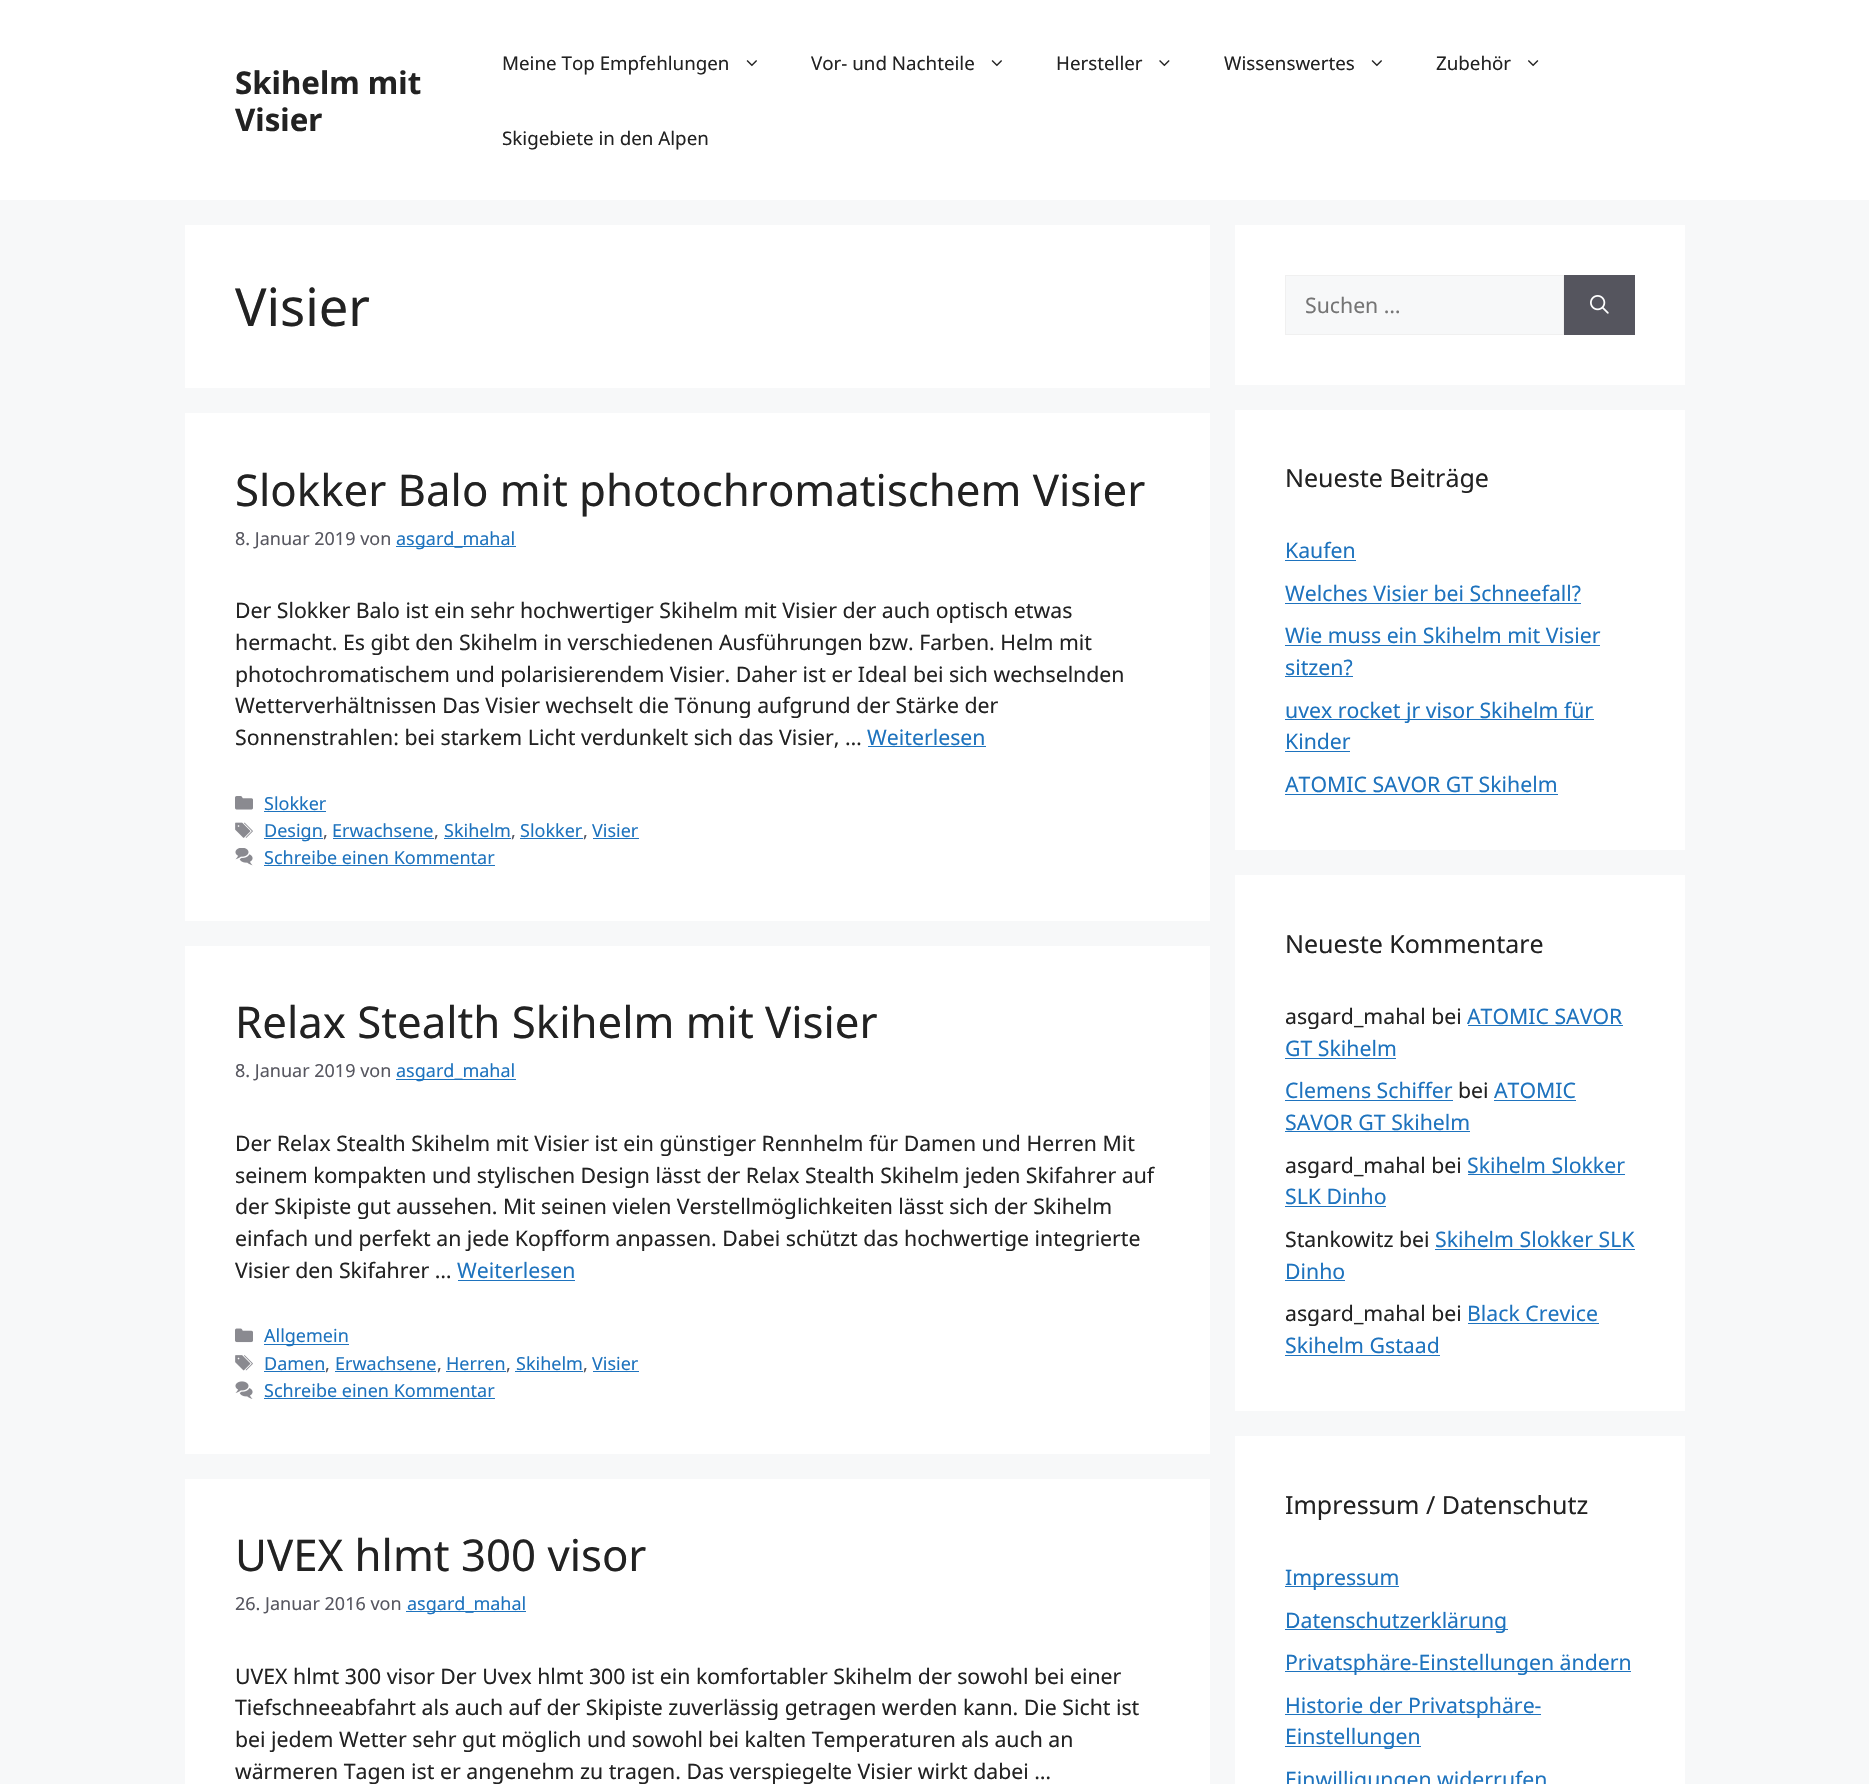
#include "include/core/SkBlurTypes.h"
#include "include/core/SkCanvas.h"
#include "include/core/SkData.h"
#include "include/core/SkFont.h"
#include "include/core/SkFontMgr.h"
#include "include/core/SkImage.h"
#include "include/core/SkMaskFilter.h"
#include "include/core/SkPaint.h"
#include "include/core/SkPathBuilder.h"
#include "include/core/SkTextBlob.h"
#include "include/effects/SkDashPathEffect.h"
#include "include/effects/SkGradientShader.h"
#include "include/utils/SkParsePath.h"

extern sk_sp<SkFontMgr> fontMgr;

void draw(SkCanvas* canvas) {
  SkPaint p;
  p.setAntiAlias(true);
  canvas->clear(SkColorSetRGB(247, 248, 249));
  p.setColor(SK_ColorWHITE);
  canvas->drawRect(SkRect::MakeLTRB(0, 0, 1869, 200), p);
  canvas->drawImageRect(SkImages::DeferredFromEncodedData(SkData::MakeFromFileName("images/1.png")), SkRect::MakeLTRB(746, 60, 757, 67), SkSamplingOptions());
  canvas->drawImageRect(SkImages::DeferredFromEncodedData(SkData::MakeFromFileName("images/1.png")), SkRect::MakeLTRB(991, 60, 1002, 67), SkSamplingOptions());
  canvas->drawImageRect(SkImages::DeferredFromEncodedData(SkData::MakeFromFileName("images/2.png")), SkRect::MakeLTRB(1159, 60, 1170, 67), SkSamplingOptions());
  canvas->drawImageRect(SkImages::DeferredFromEncodedData(SkData::MakeFromFileName("images/1.png")), SkRect::MakeLTRB(1371, 60, 1382, 67), SkSamplingOptions());
  canvas->drawImageRect(SkImages::DeferredFromEncodedData(SkData::MakeFromFileName("images/3.png")), SkRect::MakeLTRB(1528, 60, 1539, 67), SkSamplingOptions());
  canvas->drawRect(SkRect::MakeLTRB(185, 225, 1210, 388), p);
  canvas->drawRect(SkRect::MakeLTRB(185, 413, 1210, 921), p);
  p.setColor(SkColorSetRGB(30, 115, 190));
  canvas->drawRect(SkRect::MakeLTRB(396, 546, 516, 547), p);
  canvas->drawRect(SkRect::MakeLTRB(868, 746, 986, 747), p);
  canvas->drawImageRect(SkImages::DeferredFromEncodedData(SkData::MakeFromFileName("images/4.png")), SkRect::MakeLTRB(235, 796, 253, 810), SkSamplingOptions());
  canvas->drawRect(SkRect::MakeLTRB(264, 811, 326, 812), p);
  canvas->drawImageRect(SkImages::DeferredFromEncodedData(SkData::MakeFromFileName("images/5.png")), SkRect::MakeLTRB(235, 822, 253, 838), SkSamplingOptions());
  canvas->drawRect(SkRect::MakeLTRB(264, 838, 323, 839), p);
  canvas->drawRect(SkRect::MakeLTRB(333, 838, 434, 839), p);
  canvas->drawRect(SkRect::MakeLTRB(444, 838, 511, 839), p);
  canvas->drawRect(SkRect::MakeLTRB(520, 838, 583, 839), p);
  canvas->drawRect(SkRect::MakeLTRB(593, 838, 639, 839), p);
  canvas->drawImageRect(SkImages::DeferredFromEncodedData(SkData::MakeFromFileName("images/6.png")), SkRect::MakeLTRB(235, 848, 253, 866), SkSamplingOptions());
  canvas->drawRect(SkRect::MakeLTRB(264, 865, 495, 866), p);
  p.setColor(SK_ColorWHITE);
  canvas->drawRect(SkRect::MakeLTRB(185, 946, 1210, 1454), p);
  p.setColor(SkColorSetRGB(30, 115, 190));
  canvas->drawRect(SkRect::MakeLTRB(396, 1079, 516, 1080), p);
  canvas->drawRect(SkRect::MakeLTRB(458, 1280, 575, 1281), p);
  canvas->drawImageRect(SkImages::DeferredFromEncodedData(SkData::MakeFromFileName("images/7.png")), SkRect::MakeLTRB(235, 1328, 253, 1343), SkSamplingOptions());
  canvas->drawRect(SkRect::MakeLTRB(264, 1344, 349, 1345), p);
  canvas->drawImageRect(SkImages::DeferredFromEncodedData(SkData::MakeFromFileName("images/8.png")), SkRect::MakeLTRB(235, 1355, 253, 1371), SkSamplingOptions());
  canvas->drawRect(SkRect::MakeLTRB(264, 1371, 325, 1372), p);
  canvas->drawRect(SkRect::MakeLTRB(335, 1371, 436, 1372), p);
  canvas->drawRect(SkRect::MakeLTRB(446, 1371, 506, 1372), p);
  canvas->drawRect(SkRect::MakeLTRB(515, 1371, 583, 1372), p);
  canvas->drawRect(SkRect::MakeLTRB(593, 1371, 639, 1372), p);
  canvas->drawImageRect(SkImages::DeferredFromEncodedData(SkData::MakeFromFileName("images/9.png")), SkRect::MakeLTRB(235, 1381, 253, 1399), SkSamplingOptions());
  canvas->drawRect(SkRect::MakeLTRB(264, 1398, 495, 1399), p);
  p.setColor(SK_ColorWHITE);
  canvas->drawRect(SkRect::MakeLTRB(185, 1479, 1210, 1784), p);
  p.setColor(SkColorSetRGB(30, 115, 190));
  canvas->drawRect(SkRect::MakeLTRB(406, 1611, 526, 1612), p);
  p.setColor(SK_ColorWHITE);
  canvas->drawRect(SkRect::MakeLTRB(1235, 225, 1685, 385), p);
  p.setColor(SkColorSetRGB(247, 248, 249));
  canvas->drawRect(SkRect::MakeLTRB(1285.5f, 275.5f, 1563.5f, 334.5f), p);
  p.setStyle(SkPaint::kStroke_Style);
  p.setStrokeWidth(1);
  p.setColor(SkColorSetRGB(240, 240, 240));
  canvas->drawRect(SkRect::MakeLTRB(1285.5f, 275.5f, 1563.5f, 334.5f), p);
  p.setStyle(SkPaint::kFill_Style);
  p.setColor(SkColorSetRGB(85, 85, 94));
  canvas->drawRect(SkRect::MakeLTRB(1564, 275, 1635, 335), p);
  canvas->drawImageRect(SkImages::DeferredFromEncodedData(SkData::MakeFromFileName("images/10.png")), SkRect::MakeLTRB(1590, 295, 1609, 314), SkSamplingOptions());
  p.setColor(SK_ColorWHITE);
  canvas->drawRect(SkRect::MakeLTRB(1235, 410, 1685, 850), p);
  p.setColor(SkColorSetRGB(30, 115, 190));
  canvas->drawRect(SkRect::MakeLTRB(1285, 560, 1356, 561), p);
  canvas->drawRect(SkRect::MakeLTRB(1285, 603, 1581, 604), p);
  canvas->drawRect(SkRect::MakeLTRB(1285, 645, 1600, 646), p);
  canvas->drawRect(SkRect::MakeLTRB(1285, 676, 1353, 677), p);
  canvas->drawRect(SkRect::MakeLTRB(1285, 719, 1594, 720), p);
  canvas->drawRect(SkRect::MakeLTRB(1285, 751, 1350, 752), p);
  canvas->drawRect(SkRect::MakeLTRB(1285, 794, 1558, 795), p);
  p.setColor(SK_ColorWHITE);
  canvas->drawRect(SkRect::MakeLTRB(1235, 875, 1685, 1411), p);
  p.setColor(SkColorSetRGB(30, 115, 190));
  canvas->drawRect(SkRect::MakeLTRB(1468, 1025, 1623, 1026), p);
  canvas->drawRect(SkRect::MakeLTRB(1285, 1058, 1396, 1059), p);
  canvas->drawRect(SkRect::MakeLTRB(1285, 1100, 1453, 1101), p);
  canvas->drawRect(SkRect::MakeLTRB(1494, 1100, 1576, 1101), p);
  canvas->drawRect(SkRect::MakeLTRB(1285, 1131, 1470, 1132), p);
  canvas->drawRect(SkRect::MakeLTRB(1468, 1174, 1625, 1175), p);
  canvas->drawRect(SkRect::MakeLTRB(1285, 1206, 1386, 1207), p);
  canvas->drawRect(SkRect::MakeLTRB(1435, 1249, 1635, 1250), p);
  canvas->drawRect(SkRect::MakeLTRB(1285, 1280, 1345, 1281), p);
  canvas->drawRect(SkRect::MakeLTRB(1468, 1323, 1599, 1324), p);
  canvas->drawRect(SkRect::MakeLTRB(1285, 1355, 1440, 1356), p);
  p.setColor(SK_ColorWHITE);
  canvas->drawRect(SkRect::MakeLTRB(1235, 1436, 1685, 1784), p);
  p.setColor(SkColorSetRGB(30, 115, 190));
  canvas->drawRect(SkRect::MakeLTRB(1285, 1586, 1399, 1587), p);
  canvas->drawRect(SkRect::MakeLTRB(1285, 1629, 1508, 1630), p);
  canvas->drawRect(SkRect::MakeLTRB(1285, 1671, 1631, 1672), p);
  canvas->drawRect(SkRect::MakeLTRB(1285, 1714, 1541, 1715), p);
  canvas->drawRect(SkRect::MakeLTRB(1285, 1746, 1421, 1747), p);
  SkFont font1(fontMgr->matchFamilyStyle("Noto Sans", SkFontStyle::Bold()), 31.25f);
  font1.setSubpixel(true);
  p.setColor(SkColorSetRGB(34, 34, 34));
  canvas->drawString("Skihelm mit", 235, 94, font1, p);
  canvas->drawString("Visier", 235, 131, font1, p);
  SkFont font2(fontMgr->matchFamilyStyle("Noto Sans", SkFontStyle::Normal()), 18.75f);
  font2.setSubpixel(true);
  canvas->drawString("Meine Top Empfehlungen", 502, 70, font2, p);
  canvas->drawString("Vor- und Nachteile", 811, 70, font2, p);
  canvas->drawString("Hersteller", 1056, 70, font2, p);
  canvas->drawString("Wissenswertes", 1224, 70, font2, p);
  canvas->drawString("Zubehör", 1436, 70, font2, p);
  canvas->drawString("Skigebiete in den Alpen", 502, 145, font2, p);
  SkFont font3(fontMgr->matchFamilyStyle("Noto Sans", SkFontStyle::Normal()), 52.5f);
  font3.setSubpixel(true);
  canvas->drawString("Visier", 235, 326, font3, p);
  SkFont font4(fontMgr->matchFamilyStyle("Noto Sans", SkFontStyle::Normal()), 43.75f);
  font4.setSubpixel(true);
  canvas->drawString("Slokker Balo mit photochromatischem Visier", 235, 506, font4, p);
  SkFont font5(fontMgr->matchFamilyStyle("Noto Sans", SkFontStyle::Normal()), 18);
  font5.setSubpixel(true);
  p.setColor(SkColorSetRGB(87, 87, 96));
  canvas->drawString("8. Januar 2019 von", 235, 545, font5, p);
  p.setColor(SkColorSetRGB(30, 115, 190));
  canvas->drawString("asgard_mahal", 396, 545, font5, p);
  SkFont font6(fontMgr->matchFamilyStyle("Noto Sans", SkFontStyle::Normal()), 21.25f);
  font6.setSubpixel(true);
  p.setColor(SkColorSetRGB(34, 34, 34));
  canvas->drawString("Der Slokker Balo ist ein sehr hochwertiger Skihelm mit Visier der auch optisch etwas", 235, 618, font6, p);
  canvas->drawString("hermacht. Es gibt den Skihelm in verschiedenen Ausführungen bzw. Farben. Helm mit", 235, 650, font6, p);
  canvas->drawString("photochromatischem und polarisierendem Visier. Daher ist er Ideal bei sich wechselnden", 235, 682, font6, p);
  canvas->drawString("Wetterverhältnissen Das Visier wechselt die Tönung aufgrund der Stärke der", 235, 713, font6, p);
  canvas->drawString("Sonnenstrahlen: bei starkem Licht verdunkelt sich das Visier, …", 235, 745, font6, p);
  p.setColor(SkColorSetRGB(30, 115, 190));
  canvas->drawString("Weiterlesen", 867, 745, font6, p);
  canvas->drawString("Slokker", 264, 810, font5, p);
  canvas->drawString("Design", 264, 837, font5, p);
  p.setColor(SkColorSetRGB(87, 87, 96));
  canvas->drawString(",", 323, 837, font5, p);
  p.setColor(SkColorSetRGB(30, 115, 190));
  canvas->drawString("Erwachsene", 332, 837, font5, p);
  p.setColor(SkColorSetRGB(87, 87, 96));
  canvas->drawString(",", 434, 837, font5, p);
  p.setColor(SkColorSetRGB(30, 115, 190));
  canvas->drawString("Skihelm", 444, 837, font5, p);
  p.setColor(SkColorSetRGB(87, 87, 96));
  canvas->drawString(",", 511, 837, font5, p);
  p.setColor(SkColorSetRGB(30, 115, 190));
  canvas->drawString("Slokker", 520, 837, font5, p);
  p.setColor(SkColorSetRGB(87, 87, 96));
  canvas->drawString(",", 583, 837, font5, p);
  p.setColor(SkColorSetRGB(30, 115, 190));
  canvas->drawString("Visier", 592, 837, font5, p);
  canvas->drawString("Schreibe einen Kommentar", 264, 864, font5, p);
  p.setColor(SkColorSetRGB(34, 34, 34));
  canvas->drawString("Relax Stealth Skihelm mit Visier", 235, 1038, font4, p);
  p.setColor(SkColorSetRGB(87, 87, 96));
  canvas->drawString("8. Januar 2019 von", 235, 1077, font5, p);
  p.setColor(SkColorSetRGB(30, 115, 190));
  canvas->drawString("asgard_mahal", 396, 1077, font5, p);
  p.setColor(SkColorSetRGB(34, 34, 34));
  canvas->drawString("Der Relax Stealth Skihelm mit Visier ist ein günstiger Rennhelm für Damen und Herren Mit", 235, 1151, font6, p);
  canvas->drawString("seinem kompakten und stylischen Design lässt der Relax Stealth Skihelm jeden Skifahrer auf", 235, 1183, font6, p);
  canvas->drawString("der Skipiste gut aussehen. Mit seinen vielen Verstellmöglichkeiten lässt sich der Skihelm", 235, 1214, font6, p);
  canvas->drawString("einfach und perfekt an jede Kopfform anpassen. Dabei schützt das hochwertige integrierte", 235, 1246, font6, p);
  canvas->drawString("Visier den Skifahrer …", 235, 1278, font6, p);
  p.setColor(SkColorSetRGB(30, 115, 190));
  canvas->drawString("Weiterlesen", 457, 1278, font6, p);
  canvas->drawString("Allgemein", 264, 1342, font5, p);
  canvas->drawString("Damen", 264, 1370, font5, p);
  p.setColor(SkColorSetRGB(87, 87, 96));
  canvas->drawString(",", 325, 1370, font5, p);
  p.setColor(SkColorSetRGB(30, 115, 190));
  canvas->drawString("Erwachsene", 335, 1370, font5, p);
  p.setColor(SkColorSetRGB(87, 87, 96));
  canvas->drawString(",", 437, 1370, font5, p);
  p.setColor(SkColorSetRGB(30, 115, 190));
  canvas->drawString("Herren", 446, 1370, font5, p);
  p.setColor(SkColorSetRGB(87, 87, 96));
  canvas->drawString(",", 506, 1370, font5, p);
  p.setColor(SkColorSetRGB(30, 115, 190));
  canvas->drawString("Skihelm", 516, 1370, font5, p);
  p.setColor(SkColorSetRGB(87, 87, 96));
  canvas->drawString(",", 583, 1370, font5, p);
  p.setColor(SkColorSetRGB(30, 115, 190));
  canvas->drawString("Visier", 592, 1370, font5, p);
  canvas->drawString("Schreibe einen Kommentar", 264, 1397, font5, p);
  p.setColor(SkColorSetRGB(34, 34, 34));
  canvas->drawString("UVEX hlmt 300 visor", 235, 1571, font4, p);
  p.setColor(SkColorSetRGB(87, 87, 96));
  canvas->drawString("26. Januar 2016 von", 235, 1610, font5, p);
  p.setColor(SkColorSetRGB(30, 115, 190));
  canvas->drawString("asgard_mahal", 407, 1610, font5, p);
  p.setColor(SkColorSetRGB(34, 34, 34));
  canvas->drawString("UVEX hlmt 300 visor Der Uvex hlmt 300 ist ein komfortabler Skihelm der sowohl bei einer", 235, 1684, font6, p);
  canvas->drawString("Tiefschneeabfahrt als auch auf der Skipiste zuverlässig getragen werden kann. Die Sicht ist", 235, 1715, font6, p);
  canvas->drawString("bei jedem Wetter sehr gut möglich und sowohl bei kalten Temperaturen als auch an", 235, 1747, font6, p);
  canvas->drawString("wärmeren Tagen ist er angenehm zu tragen. Das verspiegelte Visier wirkt dabei …", 235, 1779, font6, p);
  p.setColor(SkColorSetRGB(117, 117, 117));
  canvas->drawString("Suchen …", 1305, 313, font6, p);
  SkFont font7(fontMgr->matchFamilyStyle("Noto Sans", SkFontStyle::Normal()), 25);
  font7.setSubpixel(true);
  p.setColor(SkColorSetRGB(34, 34, 34));
  canvas->drawString("Neueste Beiträge", 1285, 487, font7, p);
  p.setColor(SkColorSetRGB(30, 115, 190));
  canvas->drawString("Kaufen", 1285, 558, font6, p);
  canvas->drawString("Welches Visier bei Schneefall?", 1285, 601, font6, p);
  canvas->drawString("Wie muss ein Skihelm mit Visier", 1285, 643, font6, p);
  canvas->drawString("sitzen?", 1285, 675, font6, p);
  canvas->drawString("uvex rocket jr visor Skihelm für", 1285, 718, font6, p);
  canvas->drawString("Kinder", 1285, 749, font6, p);
  canvas->drawString("ATOMIC SAVOR GT Skihelm", 1285, 792, font6, p);
  p.setColor(SkColorSetRGB(34, 34, 34));
  canvas->drawString("Neueste Kommentare", 1285, 953, font7, p);
  canvas->drawString("asgard_mahal bei", 1285, 1024, font6, p);
  p.setColor(SkColorSetRGB(30, 115, 190));
  canvas->drawString("ATOMIC SAVOR", 1467, 1024, font6, p);
  canvas->drawString("GT Skihelm", 1285, 1056, font6, p);
  canvas->drawString("Clemens Schiffer", 1285, 1098, font6, p);
  p.setColor(SkColorSetRGB(34, 34, 34));
  canvas->drawString("bei", 1458, 1098, font6, p);
  p.setColor(SkColorSetRGB(30, 115, 190));
  canvas->drawString("ATOMIC", 1494, 1098, font6, p);
  canvas->drawString("SAVOR GT Skihelm", 1285, 1130, font6, p);
  p.setColor(SkColorSetRGB(34, 34, 34));
  canvas->drawString("asgard_mahal bei", 1285, 1173, font6, p);
  p.setColor(SkColorSetRGB(30, 115, 190));
  canvas->drawString("Skihelm Slokker", 1467, 1173, font6, p);
  canvas->drawString("SLK Dinho", 1285, 1204, font6, p);
  p.setColor(SkColorSetRGB(34, 34, 34));
  canvas->drawString("Stankowitz bei", 1285, 1247, font6, p);
  p.setColor(SkColorSetRGB(30, 115, 190));
  canvas->drawString("Skihelm Slokker SLK", 1435, 1247, font6, p);
  canvas->drawString("Dinho", 1285, 1279, font6, p);
  p.setColor(SkColorSetRGB(34, 34, 34));
  canvas->drawString("asgard_mahal bei", 1285, 1321, font6, p);
  p.setColor(SkColorSetRGB(30, 115, 190));
  canvas->drawString("Black Crevice", 1467, 1321, font6, p);
  canvas->drawString("Skihelm Gstaad", 1285, 1353, font6, p);
  p.setColor(SkColorSetRGB(34, 34, 34));
  canvas->drawString("Impressum / Datenschutz", 1285, 1514, font7, p);
  p.setColor(SkColorSetRGB(30, 115, 190));
  canvas->drawString("Impressum", 1285, 1585, font6, p);
  canvas->drawString("Datenschutzerklärung", 1285, 1628, font6, p);
  canvas->drawString("Privatsphäre-Einstellungen ändern", 1285, 1670, font6, p);
  canvas->drawString("Historie der Privatsphäre-", 1285, 1713, font6, p);
  canvas->drawString("Einstellungen", 1285, 1744, font6, p);
  canvas->drawString("Einwilligungen widerrufen", 1285, 1787, font6, p);
}
